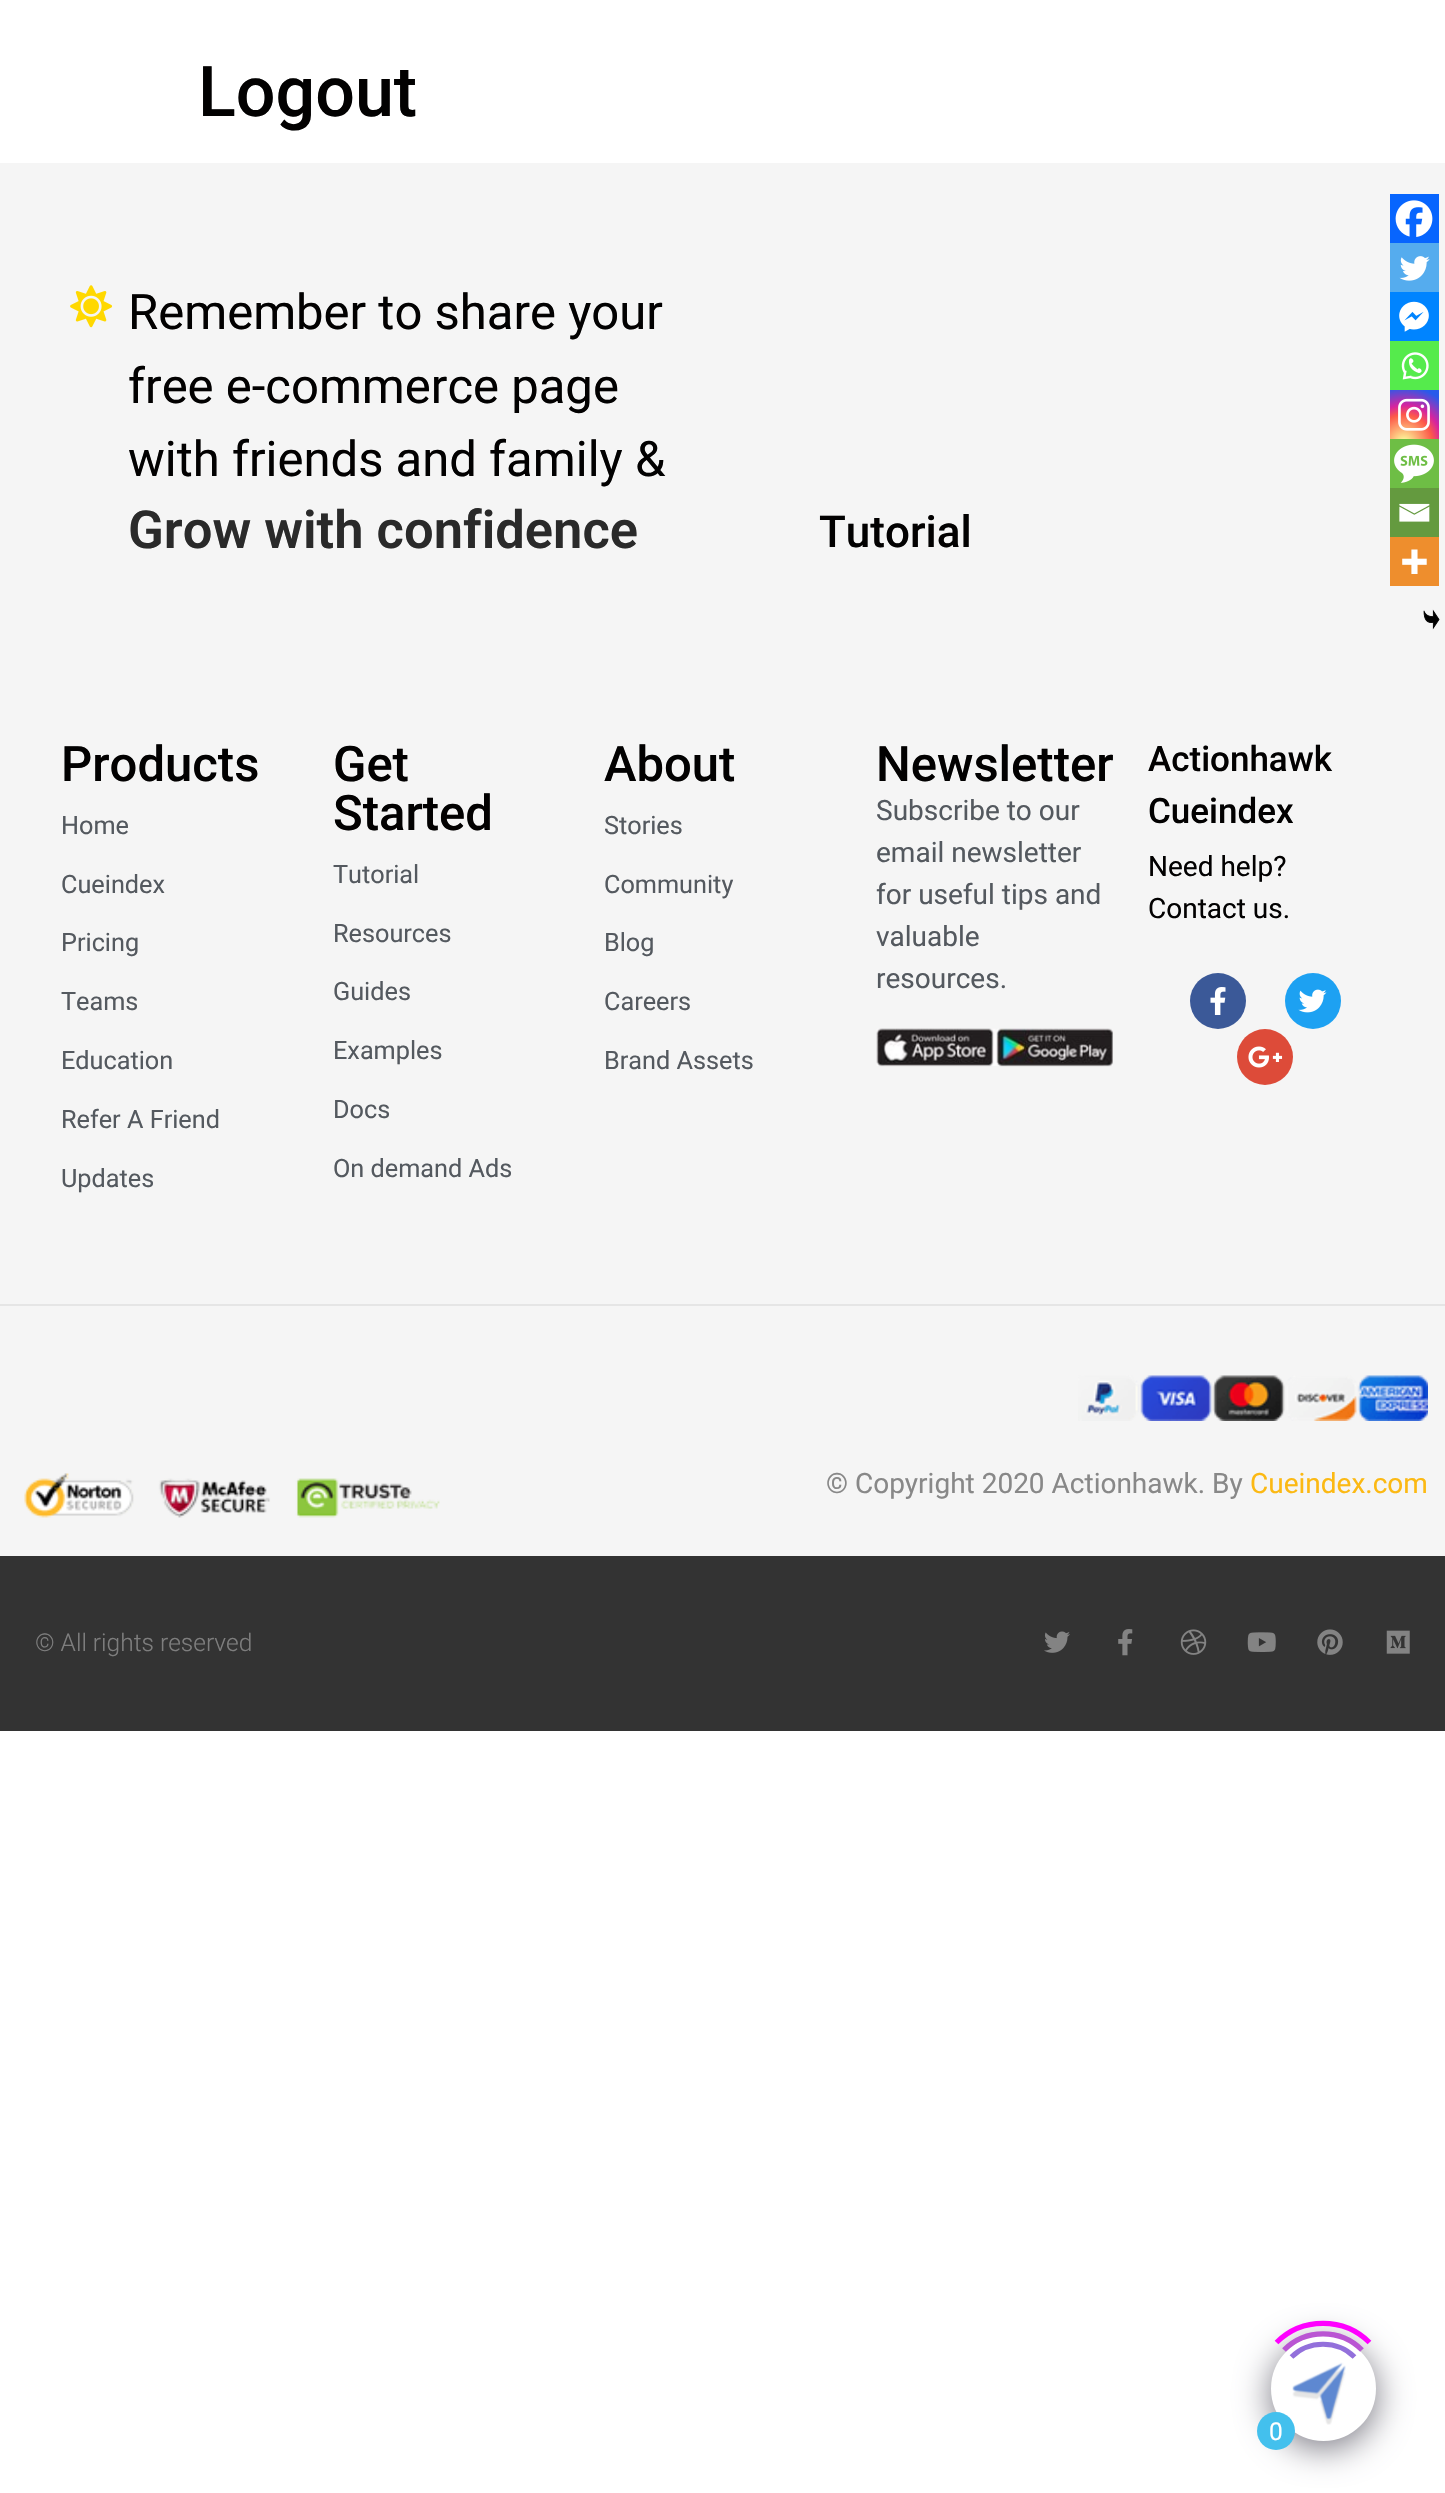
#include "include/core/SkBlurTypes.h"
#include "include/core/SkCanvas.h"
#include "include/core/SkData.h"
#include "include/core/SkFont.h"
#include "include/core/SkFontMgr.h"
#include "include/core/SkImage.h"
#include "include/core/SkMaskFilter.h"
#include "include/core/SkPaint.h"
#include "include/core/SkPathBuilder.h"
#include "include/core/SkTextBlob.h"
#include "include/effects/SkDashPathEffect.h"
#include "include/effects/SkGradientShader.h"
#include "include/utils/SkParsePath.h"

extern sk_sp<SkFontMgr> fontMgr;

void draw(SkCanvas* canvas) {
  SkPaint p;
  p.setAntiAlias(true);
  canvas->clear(SK_ColorWHITE);
  p.setColor(SkColorSetRGB(245, 245, 245));
  canvas->drawRect(SkRect::MakeLTRB(0, 163, 1445, 1304), p);
  p.setColor(SkColorSetRGB(7, 101, 254));
  canvas->drawRect(SkRect::MakeLTRB(1390, 194, 1439, 243), p);
  canvas->drawImageRect(SkImages::DeferredFromEncodedData(SkData::MakeFromFileName("images/1.png")), SkRect::MakeLTRB(1395, 200, 1433, 237), SkSamplingOptions());
  p.setColor(SkColorSetRGB(85, 172, 238));
  canvas->drawRect(SkRect::MakeLTRB(1390, 243, 1439, 292), p);
  canvas->drawImageRect(SkImages::DeferredFromEncodedData(SkData::MakeFromFileName("images/2.png")), SkRect::MakeLTRB(1399, 256, 1430, 281), SkSamplingOptions());
  p.setColor(SkColorSetRGB(0, 132, 255));
  canvas->drawRect(SkRect::MakeLTRB(1390, 292, 1439, 341), p);
  canvas->drawImageRect(SkImages::DeferredFromEncodedData(SkData::MakeFromFileName("images/3.png")), SkRect::MakeLTRB(1399, 301, 1429, 332), SkSamplingOptions());
  p.setColor(SkColorSetRGB(85, 235, 76));
  canvas->drawRect(SkRect::MakeLTRB(1390, 341, 1439, 390), p);
  canvas->drawImageRect(SkImages::DeferredFromEncodedData(SkData::MakeFromFileName("images/4.png")), SkRect::MakeLTRB(1401, 352, 1429, 380), SkSamplingOptions());
  {
    const SkColor colors[] = {SkColorSetRGB(253, 244, 151), SkColorSetRGB(253, 244, 151), SkColorSetRGB(253, 89, 73), SkColorSetRGB(214, 36, 159), SkColorSetRGB(40, 90, 235)};
    const float stops[] = {0, 0.05f, 0.45f, 0.6f, 0.9f};
    p.setShader(SkGradientShader::MakeRadial({1404, 443}, 63, colors, stops, 5, SkTileMode::kClamp));
    p.setAlpha(255);
  }
  canvas->drawRect(SkRect::MakeLTRB(1390, 390, 1439, 439), p);
  canvas->drawImageRect(SkImages::DeferredFromEncodedData(SkData::MakeFromFileName("images/5.png")), SkRect::MakeLTRB(1398, 398, 1430, 431), SkSamplingOptions());
  p.setShader(nullptr);
  p.setColor(SkColorSetRGB(110, 190, 69));
  canvas->drawRect(SkRect::MakeLTRB(1390, 439, 1439, 488), p);
  canvas->drawImageRect(SkImages::DeferredFromEncodedData(SkData::MakeFromFileName("images/6.png")), SkRect::MakeLTRB(1394, 444, 1434, 483), SkSamplingOptions());
  p.setColor(SkColorSetRGB(100, 154, 63));
  canvas->drawRect(SkRect::MakeLTRB(1390, 488, 1439, 537), p);
  canvas->drawImageRect(SkImages::DeferredFromEncodedData(SkData::MakeFromFileName("images/7.png")), SkRect::MakeLTRB(1399, 503, 1430, 522), SkSamplingOptions());
  p.setColor(SkColorSetRGB(238, 142, 45));
  canvas->drawRect(SkRect::MakeLTRB(1390, 537, 1439, 586), p);
  canvas->drawImageRect(SkImages::DeferredFromEncodedData(SkData::MakeFromFileName("images/8.png")), SkRect::MakeLTRB(1402, 549, 1427, 574), SkSamplingOptions());
  canvas->drawImageRect(SkImages::DeferredFromEncodedData(SkData::MakeFromFileName("images/9.png")), SkRect::MakeLTRB(1423, 609, 1440, 630), SkSamplingOptions());
  canvas->drawImageRect(SkImages::DeferredFromEncodedData(SkData::MakeFromFileName("images/10.png")), SkRect::MakeLTRB(70, 285, 113, 328), SkSamplingOptions());
  canvas->drawImageRect(SkImages::DeferredFromEncodedData(SkData::MakeFromFileName("images/11.png")), SkRect::MakeLTRB(876, 1028, 1113, 1067), SkSamplingOptions());
  p.setColor(SkColorSetRGB(59, 89, 152));
  canvas->drawCircle(1218, 1001, 28, p);
  canvas->drawImageRect(SkImages::DeferredFromEncodedData(SkData::MakeFromFileName("images/12.png")), SkRect::MakeLTRB(1210, 987, 1226, 1015), SkSamplingOptions());
  p.setColor(SkColorSetRGB(29, 161, 242));
  canvas->drawCircle(1313, 1001, 28, p);
  canvas->drawImageRect(SkImages::DeferredFromEncodedData(SkData::MakeFromFileName("images/13.png")), SkRect::MakeLTRB(1298, 989, 1327, 1013), SkSamplingOptions());
  p.setColor(SkColorSetRGB(221, 75, 57));
  canvas->drawCircle(1265, 1057, 28, p);
  canvas->drawImageRect(SkImages::DeferredFromEncodedData(SkData::MakeFromFileName("images/14.png")), SkRect::MakeLTRB(1248, 1046, 1283, 1068), SkSamplingOptions());
  p.setColor(SkColorSetRGB(245, 245, 245));
  canvas->drawRect(SkRect::MakeLTRB(0, 1306, 1445, 1556), p);
  p.setColor(SkColorSetRGB(229, 229, 229));
  canvas->drawRect(SkRect::MakeLTRB(0, 1304, 1445, 1306), p);
  canvas->drawImageRect(SkImages::DeferredFromEncodedData(SkData::MakeFromFileName("images/15.png")), SkRect::MakeLTRB(1078, 1375, 1428, 1421), SkSamplingOptions());
  canvas->drawImageRect(SkImages::DeferredFromEncodedData(SkData::MakeFromFileName("images/16.png")), SkRect::MakeLTRB(24, 1473, 440, 1518), SkSamplingOptions());
  p.setColor(SkColorSetRGB(51, 51, 51));
  canvas->drawRect(SkRect::MakeLTRB(0, 1556, 1445, 1731), p);
  canvas->drawImageRect(SkImages::DeferredFromEncodedData(SkData::MakeFromFileName("images/17.png")), SkRect::MakeLTRB(1044, 1631, 1070, 1653), SkSamplingOptions());
  canvas->drawImageRect(SkImages::DeferredFromEncodedData(SkData::MakeFromFileName("images/18.png")), SkRect::MakeLTRB(1118, 1629, 1133, 1656), SkSamplingOptions());
  canvas->drawImageRect(SkImages::DeferredFromEncodedData(SkData::MakeFromFileName("images/19.png")), SkRect::MakeLTRB(1180, 1629, 1207, 1655), SkSamplingOptions());
  canvas->drawImageRect(SkImages::DeferredFromEncodedData(SkData::MakeFromFileName("images/20.png")), SkRect::MakeLTRB(1247, 1632, 1276, 1652), SkSamplingOptions());
  canvas->drawImageRect(SkImages::DeferredFromEncodedData(SkData::MakeFromFileName("images/21.png")), SkRect::MakeLTRB(1317, 1629, 1343, 1655), SkSamplingOptions());
  canvas->drawImageRect(SkImages::DeferredFromEncodedData(SkData::MakeFromFileName("images/22.png")), SkRect::MakeLTRB(1386, 1630, 1410, 1654), SkSamplingOptions());
  p.setColor(SkColorSetRGB(118, 117, 128));
  p.setMaskFilter(SkMaskFilter::MakeBlur(kNormal_SkBlurStyle, 17.5f));
  canvas->drawRoundRect(SkRect::MakeLTRB(1271, 2343, 1376, 2448), 52.5f, 52.5f, p);
  p.setMaskFilter(nullptr);
  p.setColor(SK_ColorWHITE);
  canvas->drawCircle(1323.5f, 2388.5f, 50, p);
  p.setStyle(SkPaint::kStroke_Style);
  p.setStrokeWidth(5);
  canvas->drawCircle(1323.5f, 2388.5f, 50, p);
  p.setStrokeWidth(5.2f);
  p.setColor(SkColorSetRGB(147, 112, 219));
  canvas->drawPath(SkPathBuilder().moveTo(1291.5f, 2357).cubicTo(1308.5f, 2340, 1337.5f, 2340, 1354.5f, 2357).detach(), p);
  p.setColor(SkColorSetRGB(186, 85, 211));
  canvas->drawPath(SkPathBuilder().moveTo(1284, 2350).cubicTo(1305.5f, 2328.5f, 1340.5f, 2328.5f, 1362, 2350).detach(), p);
  p.setColor(SkColorSetRGB(255, 0, 255));
  canvas->drawPath(SkPathBuilder().moveTo(1276.5f, 2342.5f).cubicTo(1302, 2317, 1344, 2317, 1369.5f, 2342.5f).detach(), p);
  canvas->drawImageRect(SkImages::DeferredFromEncodedData(SkData::MakeFromFileName("images/23.png")), SkRect::MakeLTRB(1292, 2362, 1346, 2425), SkSamplingOptions());
  p.setStyle(SkPaint::kFill_Style);
  p.setColor(SkColorSetRGB(67, 192, 237));
  canvas->drawCircle(1276, 2431, 19, p);
  SkFont font1(fontMgr->matchFamilyStyle("Roboto", SkFontStyle(500, SkFontStyle::kNormal_Width, SkFontStyle::kUpright_Slant)), 70);
  font1.setSubpixel(true);
  p.setColor(SkColorSetRGB(2, 1, 1));
  canvas->drawString("Logout", 198, 116, font1, p);
  SkFont font2(fontMgr->matchFamilyStyle("Roboto", SkFontStyle::Normal()), 49);
  font2.setSubpixel(true);
  canvas->drawString("Remember to share your", 128, 329, font2, p);
  canvas->drawString("free e-commerce page", 128, 403, font2, p);
  canvas->drawString("with friends and family &", 128, 476, font2, p);
  SkFont font3(fontMgr->matchFamilyStyle("Roboto", SkFontStyle(600, SkFontStyle::kNormal_Width, SkFontStyle::kUpright_Slant)), 52.5f);
  font3.setSubpixel(true);
  p.setColor(SkColorSetRGB(42, 42, 42));
  canvas->drawString("Grow with confidence", 128, 548, font3, p);
  SkFont font4(fontMgr->matchFamilyStyle("Roboto", SkFontStyle(500, SkFontStyle::kNormal_Width, SkFontStyle::kUpright_Slant)), 44);
  font4.setSubpixel(true);
  p.setColor(SkColorSetRGB(2, 1, 1));
  canvas->drawString("Tutorial", 819, 547, font4, p);
  SkFont font5(fontMgr->matchFamilyStyle("Roboto", SkFontStyle(500, SkFontStyle::kNormal_Width, SkFontStyle::kUpright_Slant)), 49);
  font5.setSubpixel(true);
  canvas->drawString("Products", 61, 781, font5, p);
  SkFont font6(fontMgr->matchFamilyStyle("Roboto", SkFontStyle::Normal()), 25.25f);
  font6.setSubpixel(true);
  p.setColor(SkColorSetRGB(84, 89, 95));
  canvas->drawString("Home", 61, 834, font6, p);
  canvas->drawString("Cueindex", 61, 893, font6, p);
  canvas->drawString("Pricing", 61, 951, font6, p);
  canvas->drawString("Teams", 61, 1010, font6, p);
  canvas->drawString("Education", 61, 1069, font6, p);
  canvas->drawString("Refer A Friend", 61, 1128, font6, p);
  canvas->drawString("Updates", 61, 1187, font6, p);
  p.setColor(SkColorSetRGB(2, 1, 1));
  canvas->drawString("Get", 333, 781, font5, p);
  canvas->drawString("Started", 333, 830, font5, p);
  p.setColor(SkColorSetRGB(84, 89, 95));
  canvas->drawString("Tutorial", 333, 883, font6, p);
  canvas->drawString("Resources", 333, 942, font6, p);
  canvas->drawString("Guides", 333, 1000, font6, p);
  canvas->drawString("Examples", 333, 1059, font6, p);
  canvas->drawString("Docs", 333, 1118, font6, p);
  canvas->drawString("On demand Ads", 333, 1177, font6, p);
  p.setColor(SkColorSetRGB(2, 1, 1));
  canvas->drawString("About", 604, 781, font5, p);
  p.setColor(SkColorSetRGB(84, 89, 95));
  canvas->drawString("Stories", 604, 834, font6, p);
  canvas->drawString("Community", 604, 893, font6, p);
  canvas->drawString("Blog", 604, 951, font6, p);
  canvas->drawString("Careers", 604, 1010, font6, p);
  canvas->drawString("Brand Assets", 604, 1069, font6, p);
  p.setColor(SkColorSetRGB(2, 1, 1));
  canvas->drawString("Newsletter", 876, 781, font5, p);
  SkFont font7(fontMgr->matchFamilyStyle("Roboto", SkFontStyle::Normal()), 28);
  font7.setSubpixel(true);
  p.setColor(SkColorSetRGB(84, 89, 95));
  canvas->drawString("Subscribe to our", 876, 820, font7, p);
  canvas->drawString("email newsletter", 876, 862, font7, p);
  canvas->drawString("for useful tips and", 876, 904, font7, p);
  canvas->drawString("valuable", 876, 946, font7, p);
  canvas->drawString("resources.", 876, 988, font7, p);
  SkFont font8(fontMgr->matchFamilyStyle("Roboto", SkFontStyle(500, SkFontStyle::kNormal_Width, SkFontStyle::kUpright_Slant)), 35);
  font8.setSubpixel(true);
  p.setColor(SkColorSetRGB(2, 1, 1));
  canvas->drawString("Actionhawk", 1148, 771, font8, p);
  canvas->drawString("Cueindex", 1148, 823, font8, p);
  canvas->drawString("Need help?", 1148, 876, font7, p);
  canvas->drawString("Contact us.", 1148, 918, font7, p);
  p.setColor(SkColorSetRGB(136, 136, 136));
  canvas->drawString("© Copyright 2020 Actionhawk. By", 826, 1493, font7, p);
  p.setColor(SkColorSetRGB(252, 185, 19));
  canvas->drawString("Cueindex.com", 1250, 1493, font7, p);
  SkFont font9(fontMgr->matchFamilyStyle("Roboto", SkFontStyle(300, SkFontStyle::kNormal_Width, SkFontStyle::kUpright_Slant)), 24.5f);
  font9.setSubpixel(true);
  p.setColor(SkColorSetRGB(126, 126, 126));
  canvas->drawString("© All rights reserved", 35, 1651, font9, p);
  SkFont font10(fontMgr->matchFamilyStyle("Roboto", SkFontStyle::Normal()), 24.5f);
  font10.setSubpixel(true);
  p.setColor(SK_ColorWHITE);
  canvas->drawString("0", 1269, 2440, font10, p);
}
